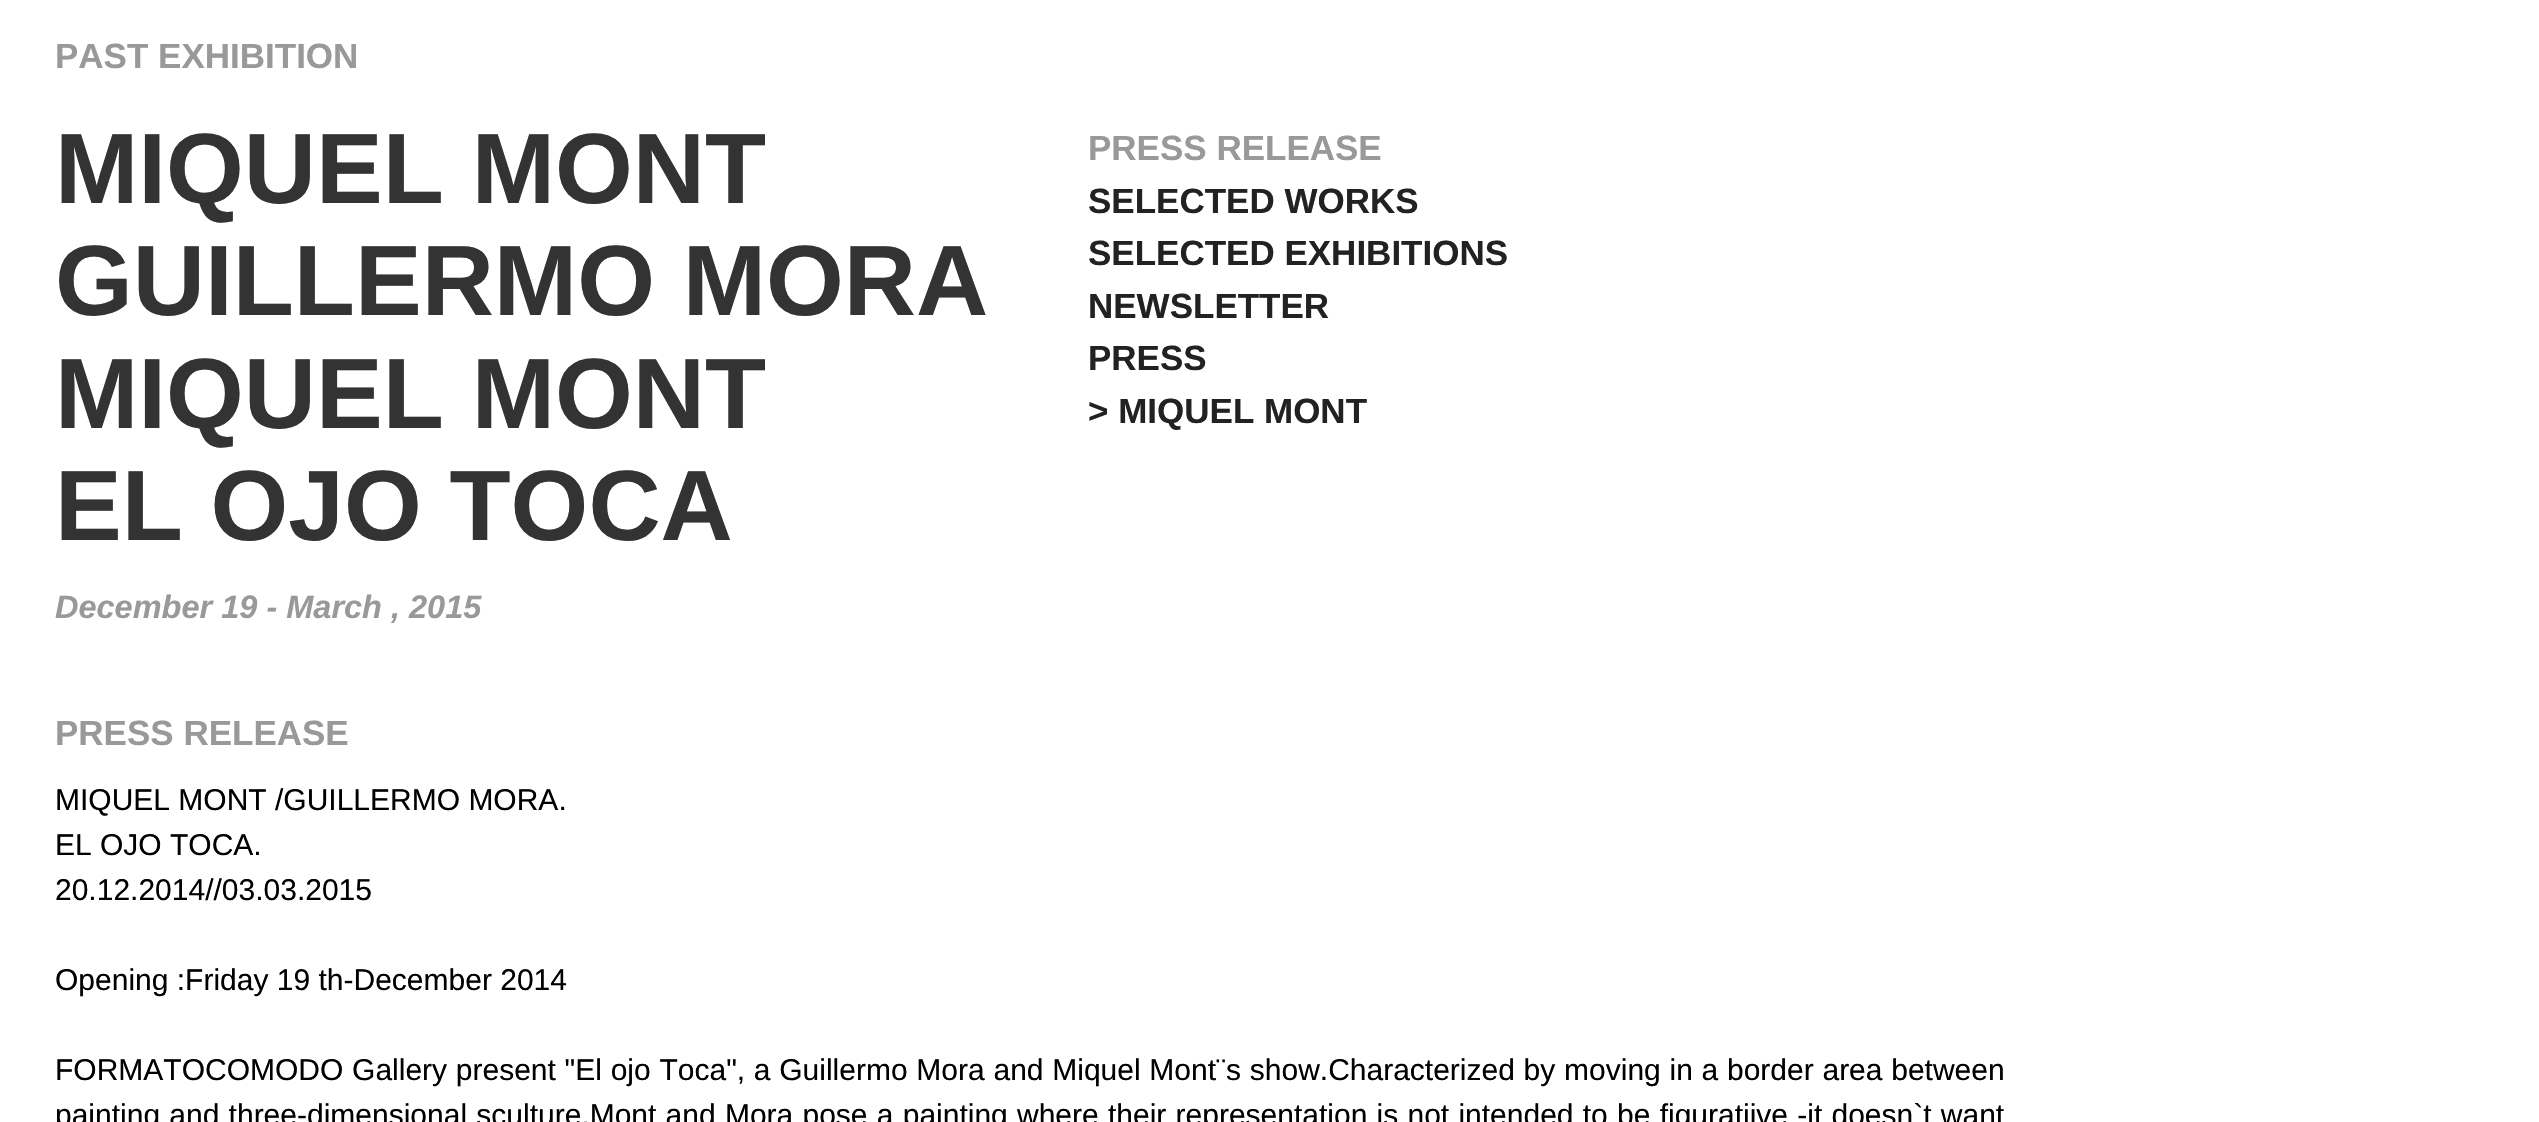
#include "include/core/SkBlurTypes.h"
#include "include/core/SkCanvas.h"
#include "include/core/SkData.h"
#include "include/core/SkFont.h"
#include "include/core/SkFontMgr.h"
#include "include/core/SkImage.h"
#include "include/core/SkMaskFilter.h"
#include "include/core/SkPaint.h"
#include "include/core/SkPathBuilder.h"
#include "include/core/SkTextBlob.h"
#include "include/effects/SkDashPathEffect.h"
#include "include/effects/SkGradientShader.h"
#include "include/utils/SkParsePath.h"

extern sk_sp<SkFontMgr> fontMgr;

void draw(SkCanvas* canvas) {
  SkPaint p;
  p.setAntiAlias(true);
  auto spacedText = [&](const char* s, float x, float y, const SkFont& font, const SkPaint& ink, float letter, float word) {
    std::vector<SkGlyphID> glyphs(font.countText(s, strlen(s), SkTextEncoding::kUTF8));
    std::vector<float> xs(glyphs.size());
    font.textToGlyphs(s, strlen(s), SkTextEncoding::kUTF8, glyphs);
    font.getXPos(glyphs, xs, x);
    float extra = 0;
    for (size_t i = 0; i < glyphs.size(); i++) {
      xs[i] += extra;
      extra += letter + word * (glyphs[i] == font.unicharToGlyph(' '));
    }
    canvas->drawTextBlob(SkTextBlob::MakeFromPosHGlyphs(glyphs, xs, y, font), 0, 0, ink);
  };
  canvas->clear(SK_ColorWHITE);
  SkFont font1(fontMgr->matchFamilyStyle("Liberation Sans", SkFontStyle::Bold()), 35);
  font1.setSubpixel(true);
  p.setColor(SkColorSetRGB(153, 153, 153));
  canvas->drawString("PAST EXHIBITION", 55, 68, font1, p);
  SkFont font2(fontMgr->matchFamilyStyle("Liberation Sans", SkFontStyle::Bold()), 100);
  font2.setSubpixel(true);
  p.setColor(SkColorSetRGB(51, 51, 51));
  canvas->drawString("MIQUEL MONT", 55, 203, font2, p);
  canvas->drawString("GUILLERMO MORA", 55, 315, font2, p);
  canvas->drawString("MIQUEL MONT", 55, 428, font2, p);
  canvas->drawString("EL OJO TOCA", 55, 540, font2, p);
  SkFont font3(fontMgr->matchFamilyStyle("Liberation Sans", SkFontStyle::BoldItalic()), 32.5f);
  font3.setSubpixel(true);
  p.setColor(SkColorSetRGB(153, 153, 153));
  canvas->drawString("December 19 - March , 2015", 55, 618, font3, p);
  canvas->drawString("PRESS RELEASE", 1088, 160, font1, p);
  p.setColor(SkColorSetRGB(34, 34, 34));
  canvas->drawString("SELECTED WORKS", 1088, 213, font1, p);
  canvas->drawString("SELECTED EXHIBITIONS", 1088, 265, font1, p);
  canvas->drawString("NEWSLETTER", 1088, 318, font1, p);
  canvas->drawString("PRESS", 1088, 370, font1, p);
  canvas->drawString("> MIQUEL MONT", 1088, 423, font1, p);
  p.setColor(SkColorSetRGB(153, 153, 153));
  canvas->drawString("PRESS RELEASE", 55, 745, font1, p);
  SkFont font4(fontMgr->matchFamilyStyle("Liberation Sans", SkFontStyle::Normal()), 30);
  font4.setSubpixel(true);
  p.setColor(SK_ColorBLACK);
  canvas->drawString("MIQUEL MONT /GUILLERMO MORA.", 55, 810, font4, p);
  canvas->drawString("EL OJO TOCA.", 55, 855, font4, p);
  canvas->drawString("20.12.2014//03.03.2015", 55, 900, font4, p);
  canvas->drawString("Opening :Friday 19 th-December 2014", 55, 990, font4, p);
  spacedText("FORMATOCOMODO Gallery present \"El ojo Toca\", a Guillermo Mora and Miquel Mont¨s show.Characterized by moving in a border area between", 55, 1080, font4, p, 0, 0.4f);
  spacedText("painting and three-dimensional sculture,Mont and Mora pose a painting where their representation is not intended to be figuratiive -it doesn`t want", 55, 1125, font4, p, 0, 0.9f);
}
